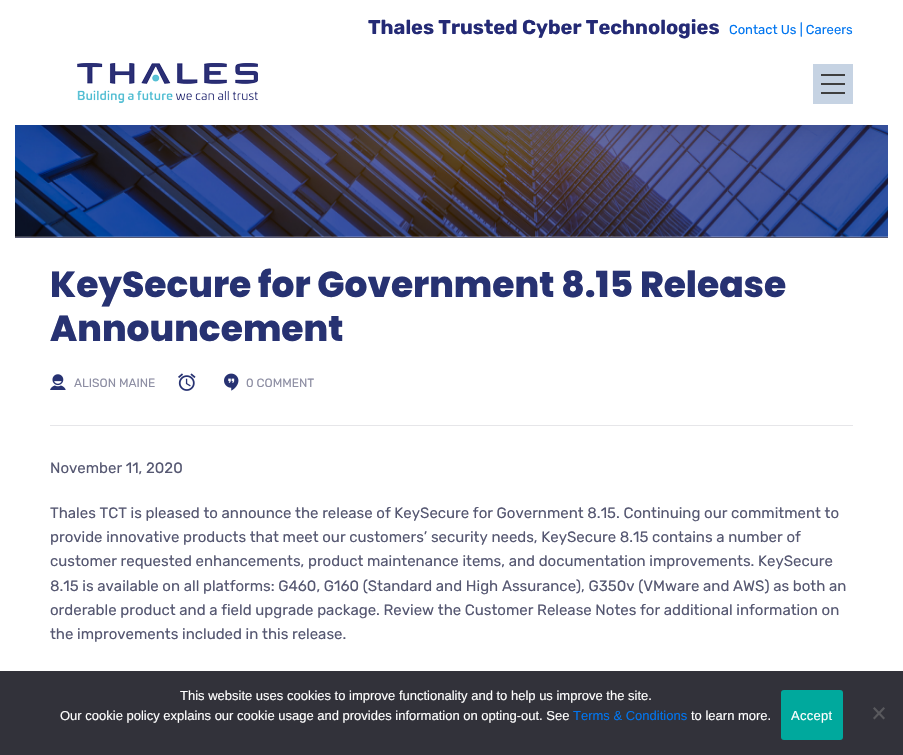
#include "include/core/SkBlurTypes.h"
#include "include/core/SkCanvas.h"
#include "include/core/SkData.h"
#include "include/core/SkFont.h"
#include "include/core/SkFontMgr.h"
#include "include/core/SkImage.h"
#include "include/core/SkMaskFilter.h"
#include "include/core/SkPaint.h"
#include "include/core/SkPathBuilder.h"
#include "include/core/SkTextBlob.h"
#include "include/effects/SkDashPathEffect.h"
#include "include/effects/SkGradientShader.h"
#include "include/utils/SkParsePath.h"

extern sk_sp<SkFontMgr> fontMgr;

void draw(SkCanvas* canvas) {
  SkPaint p;
  p.setAntiAlias(true);
  auto spacedText = [&](const char* s, float x, float y, const SkFont& font, const SkPaint& ink, float letter, float word) {
    std::vector<SkGlyphID> glyphs(font.countText(s, strlen(s), SkTextEncoding::kUTF8));
    std::vector<float> xs(glyphs.size());
    font.textToGlyphs(s, strlen(s), SkTextEncoding::kUTF8, glyphs);
    font.getXPos(glyphs, xs, x);
    float extra = 0;
    for (size_t i = 0; i < glyphs.size(); i++) {
      xs[i] += extra;
      extra += letter + word * (glyphs[i] == font.unicharToGlyph(' '));
    }
    canvas->drawTextBlob(SkTextBlob::MakeFromPosHGlyphs(glyphs, xs, y, font), 0, 0, ink);
  };
  canvas->clear(SK_ColorWHITE);
  canvas->drawImageRect(SkImages::DeferredFromEncodedData(SkData::MakeFromFileName("images/2.png")), SkRect::MakeLTRB(15, 125, 888, 237), SkSamplingOptions());
  canvas->save();
  canvas->clipRect(SkRect::MakeLTRB(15, 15, 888, 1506));
  p.setColor(SkColorSetARGB(51, 2, 6, 32));
  p.setMaskFilter(SkMaskFilter::MakeBlur(kNormal_SkBlurStyle, 17.5f));
  canvas->drawRect(SkRect::MakeLTRB(15, 42, 888, 125), p);
  p.setMaskFilter(nullptr);
  canvas->restore();
  p.setColor(SK_ColorWHITE);
  canvas->drawRect(SkRect::MakeLTRB(15, 15, 888, 125), p);
  canvas->drawImageRect(SkImages::DeferredFromEncodedData(SkData::MakeFromFileName("images/1.png")), SkRect::MakeLTRB(77, 63, 258, 103), SkSamplingOptions());
  p.setColor(SkColorSetRGB(198, 211, 227));
  canvas->drawRect(SkRect::MakeLTRB(813, 64, 853, 104), p);
  p.setColor(SkColorSetRGB(63, 63, 63));
  canvas->drawRect(SkRect::MakeLTRB(821, 74, 845, 76), p);
  canvas->drawRect(SkRect::MakeLTRB(821, 92, 845, 94), p);
  canvas->drawRect(SkRect::MakeLTRB(821, 83, 845, 85), p);
  p.setColor(SkColorSetRGB(86, 88, 114));
  canvas->drawRect(SkRect::MakeLTRB(15, 237, 888, 238), p);
  p.setColor(SkColorSetRGB(230, 230, 233));
  canvas->drawRect(SkRect::MakeLTRB(50, 425, 853, 426), p);
  canvas->drawImageRect(SkImages::DeferredFromEncodedData(SkData::MakeFromFileName("images/3.png")), SkRect::MakeLTRB(50, 374, 66, 390), SkSamplingOptions());
  canvas->drawImageRect(SkImages::DeferredFromEncodedData(SkData::MakeFromFileName("images/4.png")), SkRect::MakeLTRB(178, 373, 196, 391), SkSamplingOptions());
  canvas->drawImageRect(SkImages::DeferredFromEncodedData(SkData::MakeFromFileName("images/5.png")), SkRect::MakeLTRB(224, 373, 239, 391), SkSamplingOptions());
  p.setColor(SkColorSetRGB(50, 50, 58));
  canvas->drawRect(SkRect::MakeLTRB(0, 671, 903, 755), p);
  p.setColor(SkColorSetRGB(0, 169, 157));
  canvas->drawRoundRect(SkRect::MakeLTRB(781, 690, 843, 740), 3, 3, p);
  p.setColor(SkColorSetRGB(89, 89, 93));
  canvas->drawPath(SkPathBuilder().moveTo(883.5f, 707).lineTo(885, 708.5f).lineTo(874.5f, 719.5f).lineTo(873, 718).close().detach(), p);
  canvas->drawPath(SkPathBuilder().moveTo(873, 708.5f).lineTo(874.5f, 707).lineTo(885, 718).lineTo(883.5f, 719.5f).close().detach(), p);
  SkFont font1(fontMgr->matchFamilyStyle("Rubik", SkFontStyle::Bold()), 20);
  font1.setSubpixel(true);
  p.setColor(SkColorSetRGB(36, 42, 117));
  canvas->drawString("Thales Trusted Cyber Technologies", 368, 34, font1, p);
  SkFont font2(fontMgr->matchFamilyStyle("Rubik", SkFontStyle::Normal()), 13);
  font2.setSubpixel(true);
  p.setColor(SkColorSetRGB(0, 117, 240));
  canvas->drawString("Contact Us | Careers", 729, 34, font2, p);
  SkFont font3(fontMgr->matchFamilyStyle("Poppins", SkFontStyle(800, SkFontStyle::kNormal_Width, SkFontStyle::kUpright_Slant)), 36);
  font3.setSubpixel(true);
  p.setColor(SkColorSetRGB(39, 50, 114));
  canvas->drawString("KeySecure for Government 8.15 Release", 50, 297, font3, p);
  canvas->drawString("Announcement", 50, 341, font3, p);
  SkFont font4(fontMgr->matchFamilyStyle("Rubik", SkFontStyle::Normal()), 12);
  font4.setSubpixel(true);
  p.setColor(SkColorSetRGB(141, 142, 163));
  canvas->drawString("ALISON MAINE", 74, 387, font4, p);
  canvas->drawString("0 COMMENT", 246, 387, font4, p);
  SkFont font5(fontMgr->matchFamilyStyle("Rubik", SkFontStyle::Normal()), 15);
  font5.setSubpixel(true);
  p.setColor(SkColorSetRGB(86, 88, 114));
  canvas->drawString("November 11, 2020", 50, 473, font5, p);
  canvas->drawString("Thales TCT is pleased to announce the release of KeySecure for Government 8.15. Continuing our commitment to", 50, 518, font5, p);
  canvas->drawString("provide innovative products that meet our customers’ security needs, KeySecure 8.15 contains a number of", 50, 542, font5, p);
  canvas->drawString("customer requested enhancements, product maintenance items, and documentation improvements. KeySecure", 50, 566, font5, p);
  canvas->drawString("8.15 is available on all platforms: G460, G160 (Standard and High Assurance), G350v (VMware and AWS) as both an", 50, 591, font5, p);
  canvas->drawString("orderable product and a field upgrade package. Review the Customer Release Notes for additional information on", 50, 615, font5, p);
  canvas->drawString("the improvements included in this release.", 50, 639, font5, p);
  SkFont font6(fontMgr->matchFamilyStyle("Liberation Sans", SkFontStyle::Normal()), 13);
  font6.setSubpixel(true);
  p.setColor(SK_ColorWHITE);
  canvas->drawString("This website uses cookies to improve functionality and to help us improve the site.", 180, 700, font6, p);
  canvas->drawString("Our cookie policy explains our cookie usage and provides information on opting-out. See", 60, 720, font6, p);
  p.setColor(SkColorSetRGB(0, 117, 240));
  canvas->drawString("Terms & Conditions", 573, 720, font6, p);
  p.setColor(SK_ColorWHITE);
  canvas->drawString("to learn more.", 691, 720, font6, p);
  spacedText("Accept", 791, 720, font6, p, 0.25f, 0);
}
